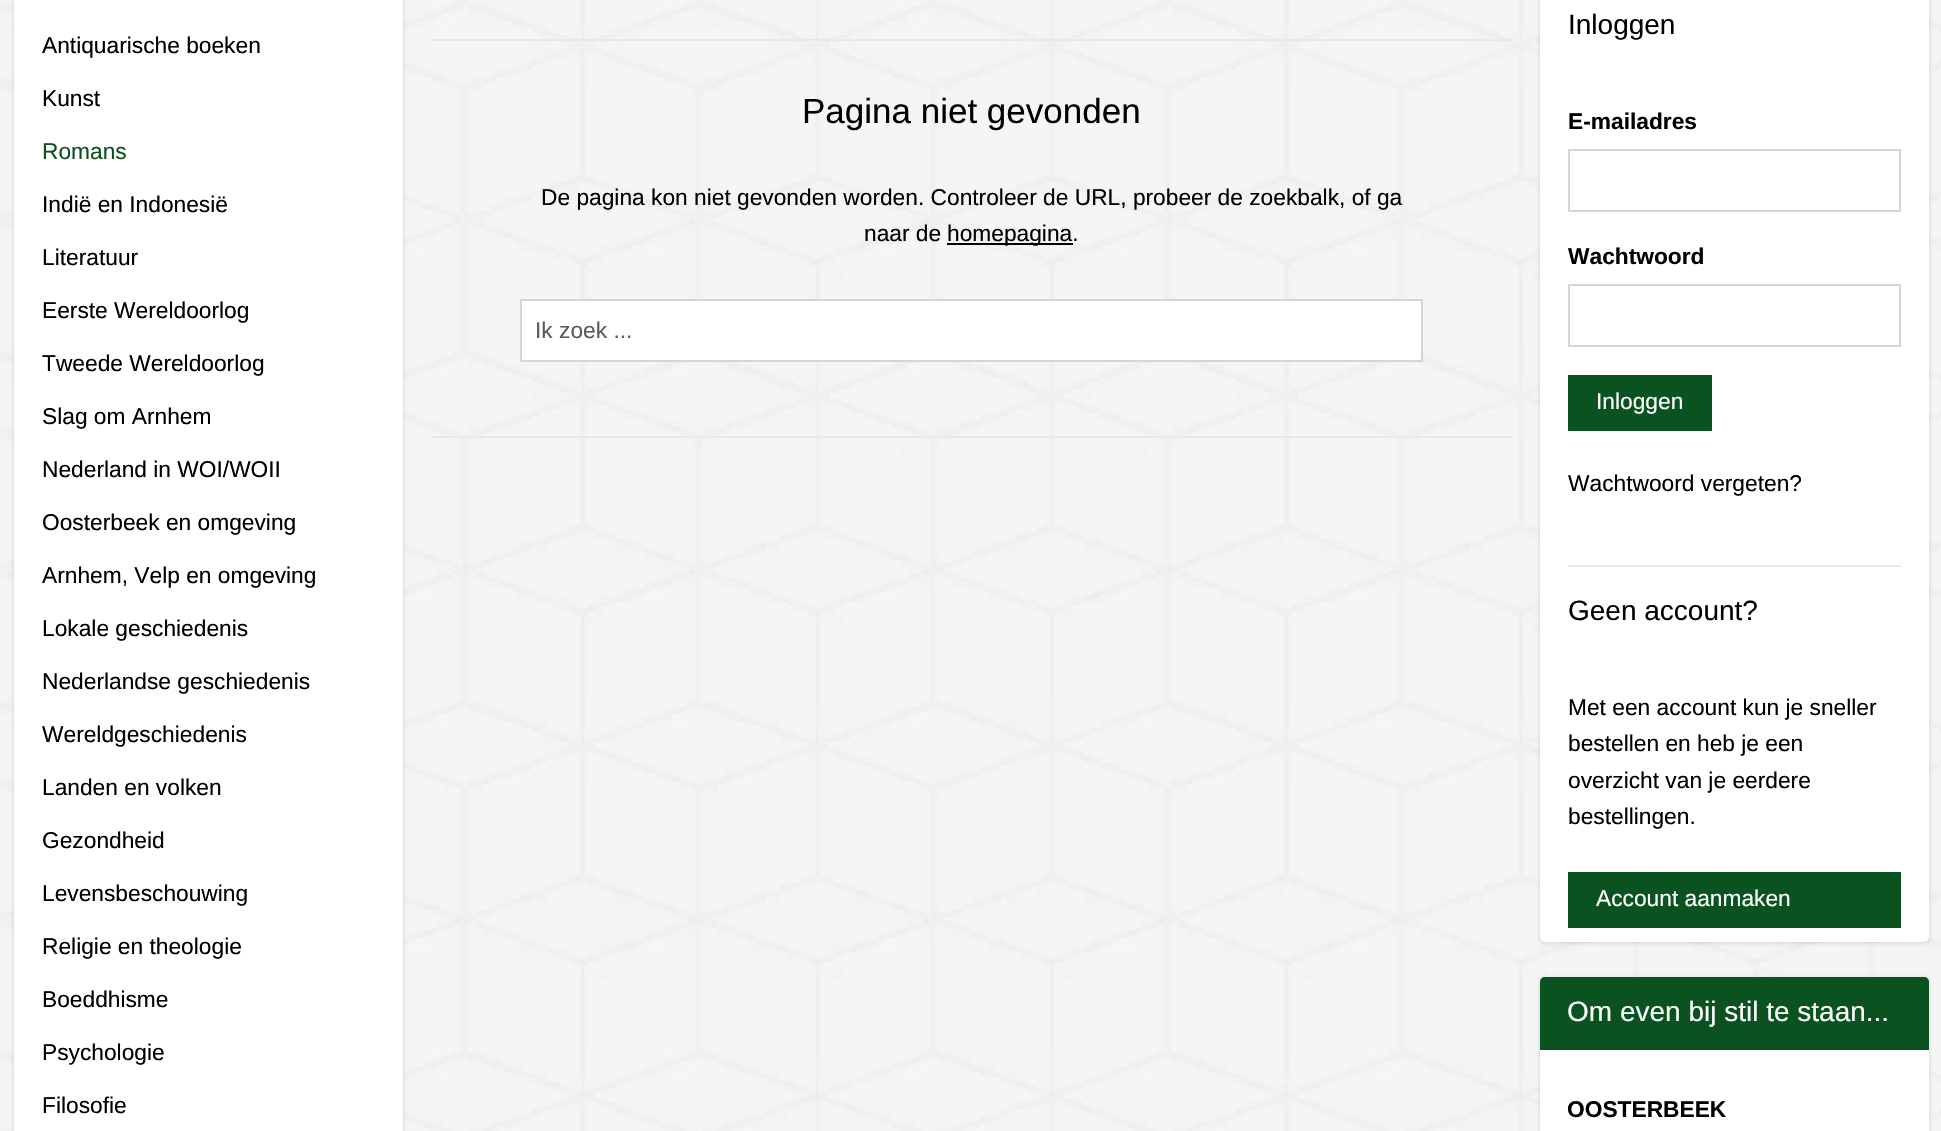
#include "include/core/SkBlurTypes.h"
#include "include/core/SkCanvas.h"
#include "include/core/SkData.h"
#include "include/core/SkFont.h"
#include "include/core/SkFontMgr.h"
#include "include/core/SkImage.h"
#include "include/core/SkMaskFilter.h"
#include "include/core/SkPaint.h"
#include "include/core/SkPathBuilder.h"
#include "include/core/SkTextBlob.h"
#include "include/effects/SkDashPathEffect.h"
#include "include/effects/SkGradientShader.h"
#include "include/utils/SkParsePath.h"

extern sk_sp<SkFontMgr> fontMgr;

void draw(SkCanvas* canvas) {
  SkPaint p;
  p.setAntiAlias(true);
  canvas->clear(SK_ColorWHITE);
  canvas->drawImageRect(SkImages::DeferredFromEncodedData(SkData::MakeFromFileName("images/1.png")), SkRect::MakeLTRB(0, 0, 1941, 1131), SkSamplingOptions());
  p.setColor(SkColorSetARGB(38, 0, 0, 0));
  p.setMaskFilter(SkMaskFilter::MakeBlur(kNormal_SkBlurStyle, 2));
  canvas->drawRoundRect(SkRect::MakeLTRB(14, -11, 403, 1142), 5, 5, p);
  p.setMaskFilter(nullptr);
  p.setColor(SK_ColorWHITE);
  canvas->drawRect(SkRect::MakeLTRB(14, 0, 403, 1131), p);
  p.setColor(SkColorSetRGB(232, 232, 232));
  canvas->drawRect(SkRect::MakeLTRB(431, 39, 1512, 41), p);
  canvas->drawRect(SkRect::MakeLTRB(431, 436, 1512, 438), p);
  p.setColor(SK_ColorBLACK);
  canvas->drawRect(SkRect::MakeLTRB(947, 243, 1073, 245), p);
  p.setColor(SK_ColorWHITE);
  canvas->drawRect(SkRect::MakeLTRB(521, 300, 1422, 361), p);
  p.setStyle(SkPaint::kStroke_Style);
  p.setStrokeWidth(2);
  p.setColor(SkColorSetRGB(211, 213, 217));
  canvas->drawRect(SkRect::MakeLTRB(521, 300, 1422, 361), p);
  p.setStyle(SkPaint::kFill_Style);
  p.setColor(SkColorSetARGB(38, 0, 0, 0));
  p.setMaskFilter(SkMaskFilter::MakeBlur(kNormal_SkBlurStyle, 2));
  canvas->drawRoundRect(SkRect::MakeLTRB(1540, -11, 1929, 943), 5, 5, p);
  p.setMaskFilter(nullptr);
  p.setColor(SK_ColorWHITE);
  canvas->drawRoundRect(SkRect::MakeLTRB(1540, -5, 1929, 942), 5, 5, p);
  p.setStyle(SkPaint::kStroke_Style);
  p.setColor(SkColorSetRGB(211, 213, 217));
  canvas->drawRect(SkRect::MakeLTRB(1569, 150, 1900, 211), p);
  canvas->drawRect(SkRect::MakeLTRB(1569, 285, 1900, 346), p);
  p.setStyle(SkPaint::kFill_Style);
  p.setColor(SkColorSetRGB(10, 82, 32));
  canvas->drawRect(SkRect::MakeLTRB(1568, 375, 1712, 431), p);
  p.setColor(SkColorSetRGB(232, 232, 232));
  canvas->drawRect(SkRect::MakeLTRB(1568, 565, 1901, 567), p);
  p.setColor(SkColorSetRGB(10, 82, 32));
  canvas->drawRect(SkRect::MakeLTRB(1568, 872, 1901, 928), p);
  p.setColor(SkColorSetARGB(38, 0, 0, 0));
  p.setMaskFilter(SkMaskFilter::MakeBlur(kNormal_SkBlurStyle, 2));
  canvas->drawRoundRect(SkRect::MakeLTRB(1540, 978, 1929, 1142), 5, 5, p);
  p.setMaskFilter(nullptr);
  p.setColor(SK_ColorWHITE);
  canvas->drawRoundRect(SkRect::MakeLTRB(1540, 977, 1929, 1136), 5, 5, p);
  p.setColor(SkColorSetRGB(10, 82, 32));
  canvas->drawPath(SkPathBuilder().moveTo(1545, 977).lineTo(1924, 977).cubicTo(1927, 977, 1929, 979, 1929, 982).lineTo(1929, 1050).lineTo(1540, 1050).lineTo(1540, 982).cubicTo(1540, 979, 1542, 977, 1545, 977).close().detach(), p);
  SkFont font1(fontMgr->matchFamilyStyle("Liberation Sans", SkFontStyle::Normal()), 22.75f);
  font1.setSubpixel(true);
  p.setColor(SK_ColorBLACK);
  canvas->drawString("Antiquarische boeken", 42, 53, font1, p);
  canvas->drawString("Kunst", 42, 106, font1, p);
  p.setColor(SkColorSetRGB(10, 82, 32));
  canvas->drawString("Romans", 42, 159, font1, p);
  p.setColor(SK_ColorBLACK);
  canvas->drawString("Indië en Indonesië", 42, 212, font1, p);
  canvas->drawString("Literatuur", 42, 265, font1, p);
  canvas->drawString("Eerste Wereldoorlog", 42, 318, font1, p);
  canvas->drawString("Tweede Wereldoorlog", 42, 371, font1, p);
  canvas->drawString("Slag om Arnhem", 42, 424, font1, p);
  canvas->drawString("Nederland in WOI/WOII", 42, 477, font1, p);
  canvas->drawString("Oosterbeek en omgeving", 42, 530, font1, p);
  canvas->drawString("Arnhem, Velp en omgeving", 42, 583, font1, p);
  canvas->drawString("Lokale geschiedenis", 42, 636, font1, p);
  canvas->drawString("Nederlandse geschiedenis", 42, 689, font1, p);
  canvas->drawString("Wereldgeschiedenis", 42, 742, font1, p);
  canvas->drawString("Landen en volken", 42, 795, font1, p);
  canvas->drawString("Gezondheid", 42, 848, font1, p);
  canvas->drawString("Levensbeschouwing", 42, 901, font1, p);
  canvas->drawString("Religie en theologie", 42, 954, font1, p);
  canvas->drawString("Boeddhisme", 42, 1007, font1, p);
  canvas->drawString("Psychologie", 42, 1060, font1, p);
  canvas->drawString("Filosofie", 42, 1113, font1, p);
  SkFont font2(fontMgr->matchFamilyStyle("Liberation Sans", SkFontStyle::Normal()), 35);
  font2.setSubpixel(true);
  canvas->drawString("Pagina niet gevonden", 802, 123, font2, p);
  canvas->drawString("De pagina kon niet gevonden worden. Controleer de URL, probeer de zoekbalk, of ga", 541, 205, font1, p);
  canvas->drawString("naar de", 864, 241, font1, p);
  canvas->drawString("homepagina.", 947, 241, font1, p);
  p.setColor(SkColorSetRGB(87, 91, 98));
  canvas->drawString("Ik zoek ...", 535, 338, font1, p);
  SkFont font3(fontMgr->matchFamilyStyle("Liberation Sans", SkFontStyle::Normal()), 28);
  font3.setSubpixel(true);
  p.setColor(SK_ColorBLACK);
  canvas->drawString("Inloggen", 1568, 34, font3, p);
  SkFont font4(fontMgr->matchFamilyStyle("Liberation Sans", SkFontStyle::Bold()), 22.75f);
  font4.setSubpixel(true);
  canvas->drawString("E-mailadres", 1568, 129, font4, p);
  canvas->drawString("Wachtwoord", 1568, 264, font4, p);
  p.setColor(SK_ColorWHITE);
  canvas->drawString("Inloggen", 1596, 409, font1, p);
  p.setColor(SK_ColorBLACK);
  canvas->drawString("Wachtwoord vergeten?", 1568, 491, font1, p);
  canvas->drawString("Geen account?", 1568, 620, font3, p);
  canvas->drawString("Met een account kun je sneller", 1568, 715, font1, p);
  canvas->drawString("bestellen en heb je een", 1568, 751, font1, p);
  canvas->drawString("overzicht van je eerdere", 1568, 788, font1, p);
  canvas->drawString("bestellingen.", 1568, 824, font1, p);
  p.setColor(SK_ColorWHITE);
  canvas->drawString("Account aanmaken", 1596, 906, font1, p);
  canvas->drawString("Om even bij stil te staan...", 1567, 1021, font3, p);
  p.setColor(SK_ColorBLACK);
  canvas->drawString("OOSTERBEEK", 1567, 1117, font4, p);
}
